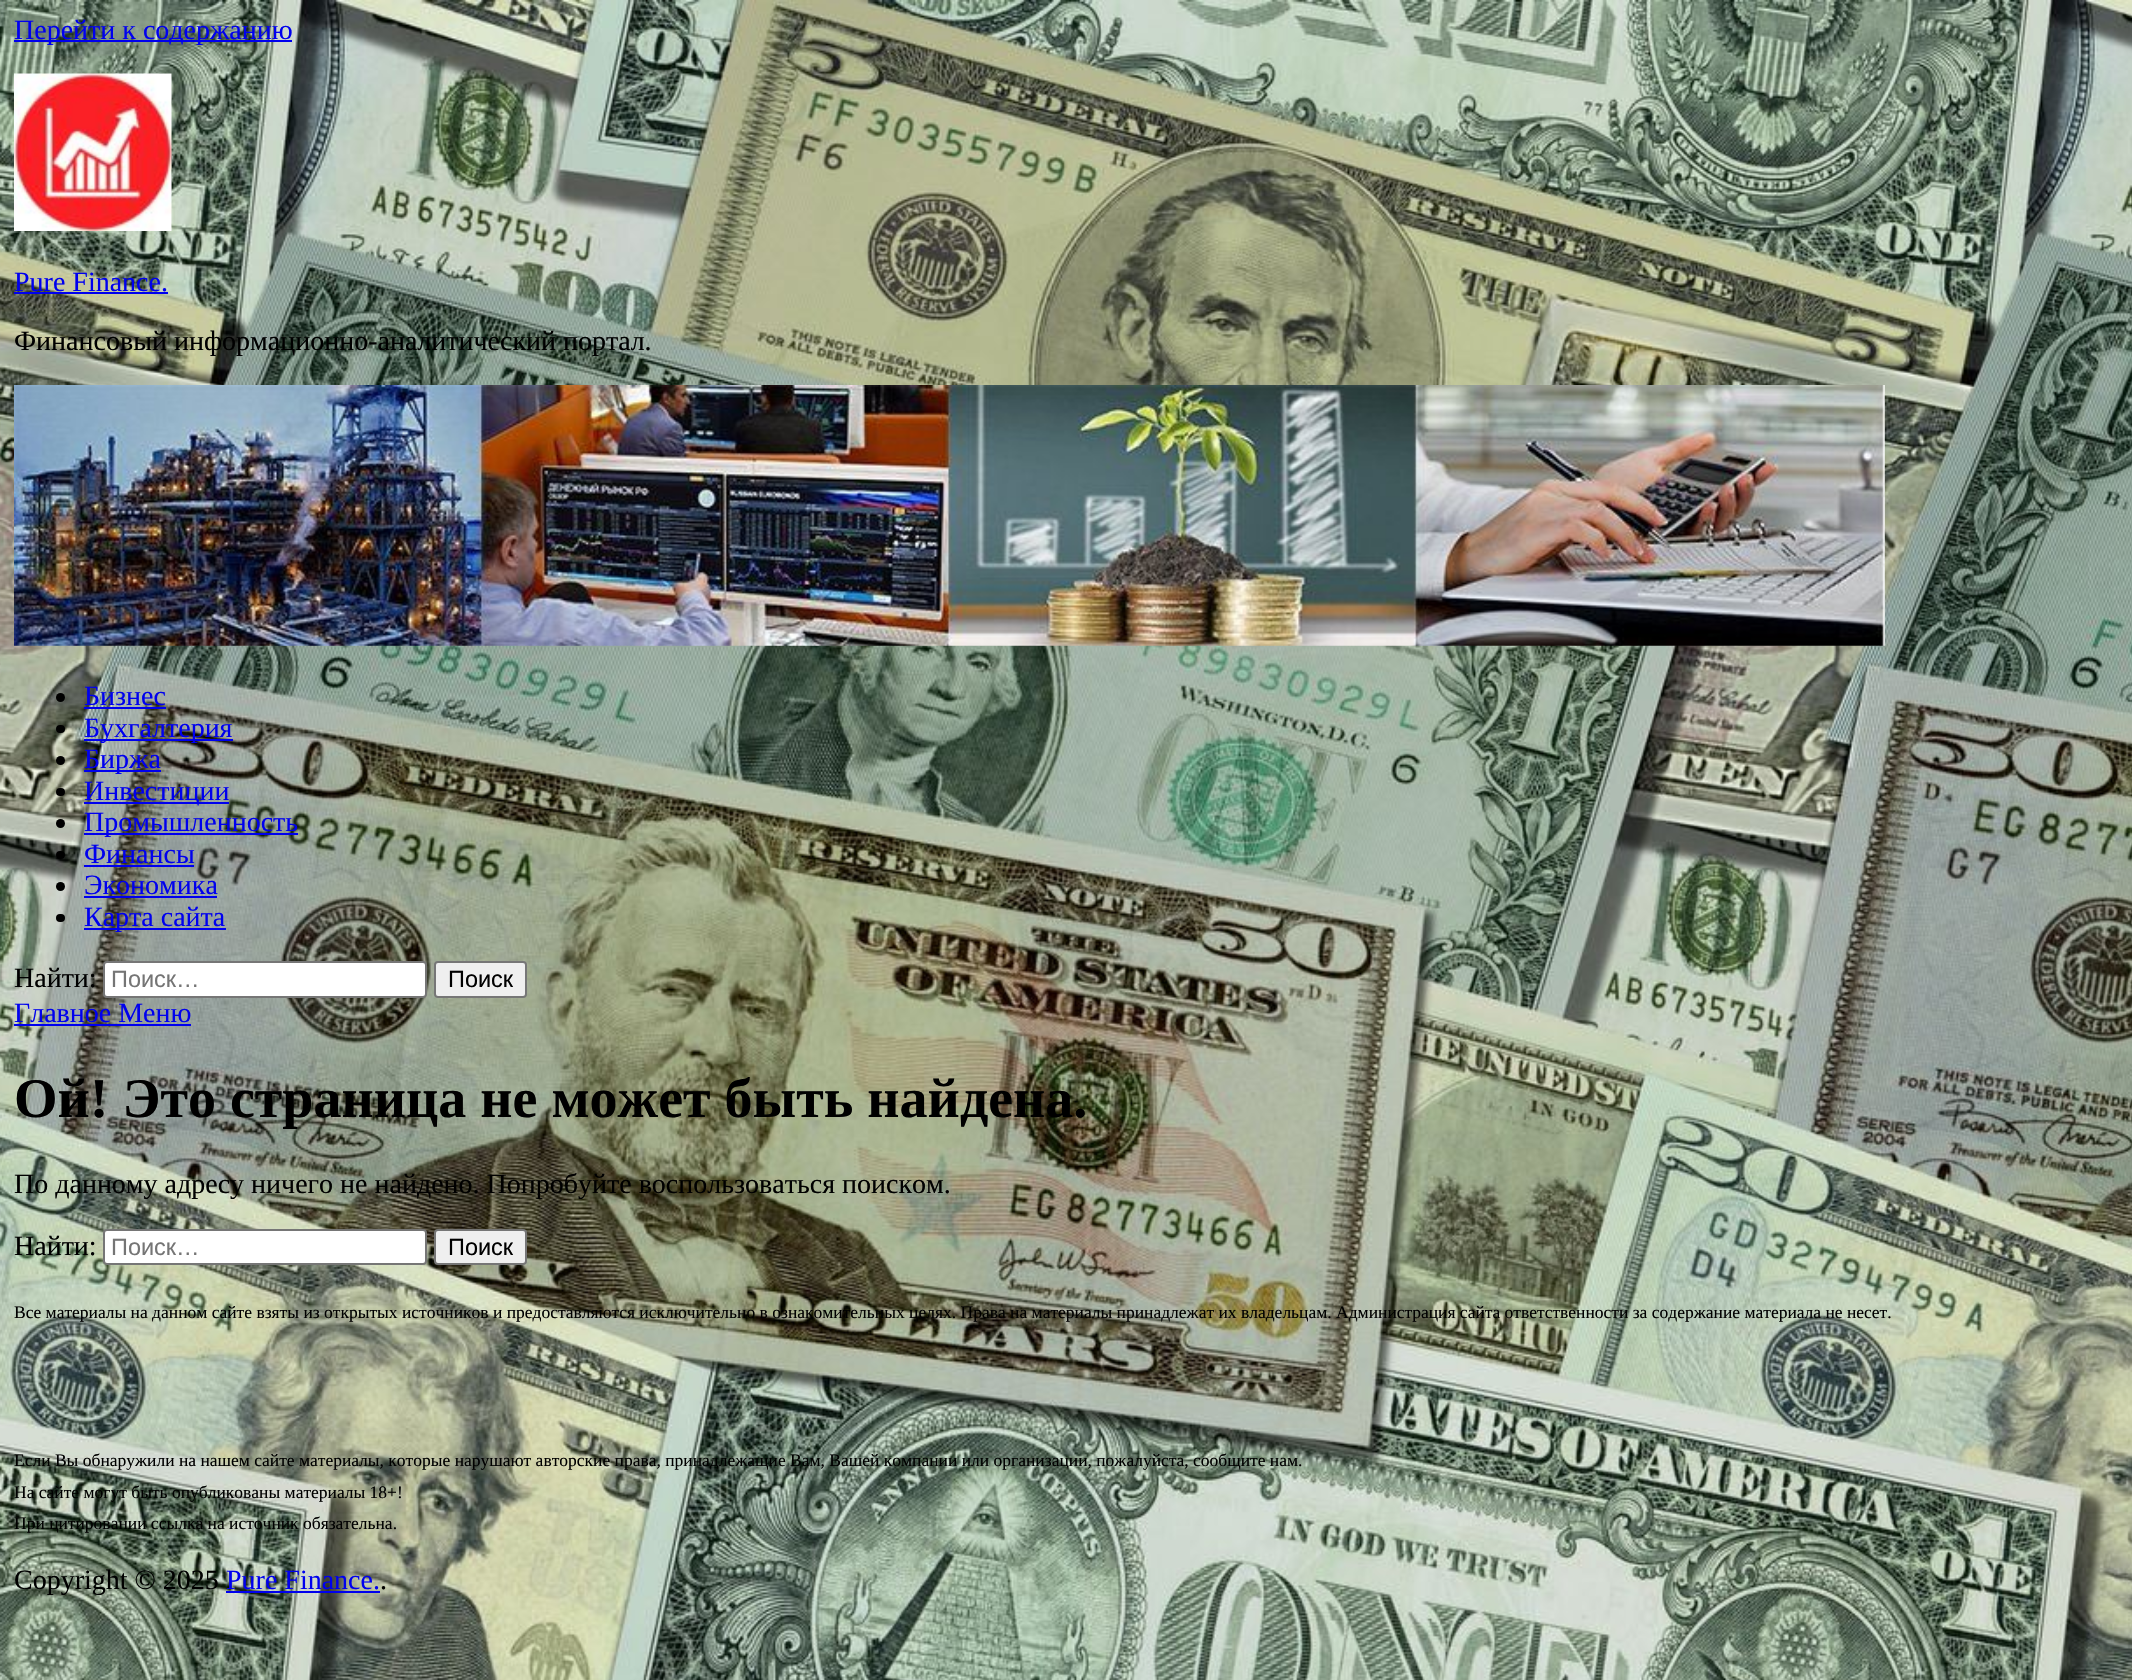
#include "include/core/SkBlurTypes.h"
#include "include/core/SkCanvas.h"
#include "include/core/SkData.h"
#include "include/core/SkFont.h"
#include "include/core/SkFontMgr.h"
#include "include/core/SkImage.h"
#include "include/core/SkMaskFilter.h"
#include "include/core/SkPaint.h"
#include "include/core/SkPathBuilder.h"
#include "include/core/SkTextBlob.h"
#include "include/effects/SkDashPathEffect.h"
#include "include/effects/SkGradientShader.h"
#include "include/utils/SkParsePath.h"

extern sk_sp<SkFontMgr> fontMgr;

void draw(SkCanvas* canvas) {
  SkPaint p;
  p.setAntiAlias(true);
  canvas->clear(SK_ColorWHITE);
  canvas->drawImageRect(SkImages::DeferredFromEncodedData(SkData::MakeFromFileName("images/1.png")), SkRect::MakeLTRB(0, 0, 2132, 1680), SkSamplingOptions());
  p.setColor(SkColorSetRGB(0, 0, 238));
  canvas->drawRect(SkRect::MakeLTRB(14, 40, 292, 42), p);
  canvas->drawImageRect(SkImages::DeferredFromEncodedData(SkData::MakeFromFileName("images/2.png")), SkRect::MakeLTRB(14, 73, 172, 231), SkSamplingOptions());
  canvas->drawRect(SkRect::MakeLTRB(14, 292, 168, 294), p);
  canvas->drawImageRect(SkImages::DeferredFromEncodedData(SkData::MakeFromFileName("images/3.png")), SkRect::MakeLTRB(14, 385, 1885, 646), SkSamplingOptions());
  p.setColor(SK_ColorBLACK);
  canvas->drawCircle(60.5f, 697.5f, 4.5f, p);
  p.setColor(SkColorSetRGB(0, 0, 238));
  canvas->drawRect(SkRect::MakeLTRB(84, 707, 166, 709), p);
  p.setColor(SK_ColorBLACK);
  canvas->drawRoundRect(SkRect::MakeLTRB(56, 725, 65, 733), 4, 4, p);
  p.setColor(SkColorSetRGB(0, 0, 238));
  canvas->drawRect(SkRect::MakeLTRB(84, 739, 233, 741), p);
  p.setColor(SK_ColorBLACK);
  canvas->drawCircle(60.5f, 760.5f, 4.5f, p);
  p.setColor(SkColorSetRGB(0, 0, 238));
  canvas->drawRect(SkRect::MakeLTRB(84, 770, 161, 772), p);
  p.setColor(SK_ColorBLACK);
  canvas->drawRoundRect(SkRect::MakeLTRB(56, 788, 65, 796), 4, 4, p);
  p.setColor(SkColorSetRGB(0, 0, 238));
  canvas->drawRect(SkRect::MakeLTRB(84, 802, 229, 804), p);
  p.setColor(SK_ColorBLACK);
  canvas->drawCircle(60.5f, 823.5f, 4.5f, p);
  p.setColor(SkColorSetRGB(0, 0, 238));
  canvas->drawRect(SkRect::MakeLTRB(84, 833, 298, 835), p);
  p.setColor(SK_ColorBLACK);
  canvas->drawRoundRect(SkRect::MakeLTRB(56, 851, 65, 859), 4, 4, p);
  p.setColor(SkColorSetRGB(0, 0, 238));
  canvas->drawRect(SkRect::MakeLTRB(84, 865, 194, 867), p);
  p.setColor(SK_ColorBLACK);
  canvas->drawCircle(60.5f, 886.5f, 4.5f, p);
  p.setColor(SkColorSetRGB(0, 0, 238));
  canvas->drawRect(SkRect::MakeLTRB(84, 896, 217, 898), p);
  p.setColor(SK_ColorBLACK);
  canvas->drawRoundRect(SkRect::MakeLTRB(56, 914, 65, 922), 4, 4, p);
  p.setColor(SkColorSetRGB(0, 0, 238));
  canvas->drawRect(SkRect::MakeLTRB(84, 928, 226, 930), p);
  p.setColor(SK_ColorWHITE);
  canvas->drawRoundRect(SkRect::MakeLTRB(104, 962, 426, 997), 3, 3, p);
  p.setStyle(SkPaint::kStroke_Style);
  p.setStrokeWidth(2);
  p.setColor(SkColorSetRGB(118, 118, 118));
  canvas->drawRoundRect(SkRect::MakeLTRB(104, 962, 426, 997), 3, 3, p);
  p.setStyle(SkPaint::kFill_Style);
  p.setColor(SkColorSetRGB(239, 239, 239));
  canvas->drawRoundRect(SkRect::MakeLTRB(435, 962, 526, 997), 3, 3, p);
  p.setStyle(SkPaint::kStroke_Style);
  p.setColor(SkColorSetRGB(118, 118, 118));
  canvas->drawRoundRect(SkRect::MakeLTRB(435, 962, 526, 997), 3, 3, p);
  p.setStyle(SkPaint::kFill_Style);
  p.setColor(SkColorSetRGB(0, 0, 238));
  canvas->drawRect(SkRect::MakeLTRB(14, 1024, 191, 1026), p);
  p.setColor(SK_ColorWHITE);
  canvas->drawRoundRect(SkRect::MakeLTRB(104, 1230, 426, 1264), 3, 3, p);
  p.setStyle(SkPaint::kStroke_Style);
  p.setColor(SkColorSetRGB(118, 118, 118));
  canvas->drawRoundRect(SkRect::MakeLTRB(104, 1230, 426, 1264), 3, 3, p);
  p.setStyle(SkPaint::kFill_Style);
  p.setColor(SkColorSetRGB(239, 239, 239));
  canvas->drawRoundRect(SkRect::MakeLTRB(435, 1230, 526, 1264), 3, 3, p);
  p.setStyle(SkPaint::kStroke_Style);
  p.setColor(SkColorSetRGB(118, 118, 118));
  canvas->drawRoundRect(SkRect::MakeLTRB(435, 1230, 526, 1264), 3, 3, p);
  p.setStyle(SkPaint::kFill_Style);
  p.setColor(SkColorSetRGB(0, 0, 238));
  canvas->drawRect(SkRect::MakeLTRB(226, 1591, 380, 1593), p);
  SkFont font1(fontMgr->matchFamilyStyle("Liberation Serif", SkFontStyle::Normal()), 28);
  font1.setSubpixel(true);
  canvas->drawString("Перейти к содержанию", 14, 39, font1, p);
  canvas->drawString("Pure Finance.", 14, 291, font1, p);
  p.setColor(SK_ColorBLACK);
  canvas->drawString("Финансовый информационно-аналитический портал.", 14, 350, font1, p);
  p.setColor(SkColorSetRGB(0, 0, 238));
  canvas->drawString("Бизнес", 84, 705, font1, p);
  canvas->drawString("Бухгалтерия", 84, 737, font1, p);
  canvas->drawString("Биржа", 84, 768, font1, p);
  canvas->drawString("Инвестиции", 84, 800, font1, p);
  canvas->drawString("Промышленность", 84, 831, font1, p);
  canvas->drawString("Финансы", 84, 863, font1, p);
  canvas->drawString("Экономика", 84, 894, font1, p);
  canvas->drawString("Карта сайта", 84, 926, font1, p);
  p.setColor(SK_ColorBLACK);
  canvas->drawString("Найти:", 14, 987, font1, p);
  SkFont font2(fontMgr->matchFamilyStyle("Liberation Sans", SkFontStyle::Normal()), 23.5f);
  font2.setSubpixel(true);
  p.setColor(SkColorSetRGB(117, 117, 117));
  canvas->drawString("Поиск…", 111, 987, font2, p);
  p.setColor(SK_ColorBLACK);
  canvas->drawString("Поиск", 448, 987, font2, p);
  p.setColor(SkColorSetRGB(0, 0, 238));
  canvas->drawString("Главное Меню", 14, 1022, font1, p);
  SkFont font3(fontMgr->matchFamilyStyle("Liberation Serif", SkFontStyle::Bold()), 56);
  font3.setSubpixel(true);
  p.setColor(SK_ColorBLACK);
  canvas->drawString("Ой! Это страница не может быть найдена.", 14, 1117, font3, p);
  canvas->drawString("По данному адресу ничего не найдено. Попробуйте воспользоваться поиском.", 14, 1193, font1, p);
  canvas->drawString("Найти:", 14, 1255, font1, p);
  p.setColor(SkColorSetRGB(117, 117, 117));
  canvas->drawString("Поиск…", 111, 1255, font2, p);
  p.setColor(SK_ColorBLACK);
  canvas->drawString("Поиск", 448, 1255, font2, p);
  SkFont font4(fontMgr->matchFamilyStyle("Liberation Serif", SkFontStyle::Normal()), 17.5f);
  font4.setSubpixel(true);
  canvas->drawString("Все материалы на данном сайте взяты из открытых источников и предоставляются исключительно в ознакомительных целях. Права на материалы принадлежат их владельцам. Администрация сайта ответственности за содержание материала не несет.", 14, 1318, font4, p);
  canvas->drawString("Если Вы обнаружили на нашем сайте материалы, которые нарушают авторские права, принадлежащие Вам, Вашей компании или организации, пожалуйста, сообщите нам.", 14, 1466, font4, p);
  canvas->drawString("На сайте могут быть опубликованы материалы 18+!", 14, 1498, font4, p);
  canvas->drawString("При цитировании ссылка на источник обязательна.", 14, 1529, font4, p);
  canvas->drawString("Copyright © 2025", 14, 1589, font1, p);
  p.setColor(SkColorSetRGB(0, 0, 238));
  canvas->drawString("Pure Finance.", 226, 1589, font1, p);
  p.setColor(SK_ColorBLACK);
  canvas->drawString(".", 380, 1589, font1, p);
}
